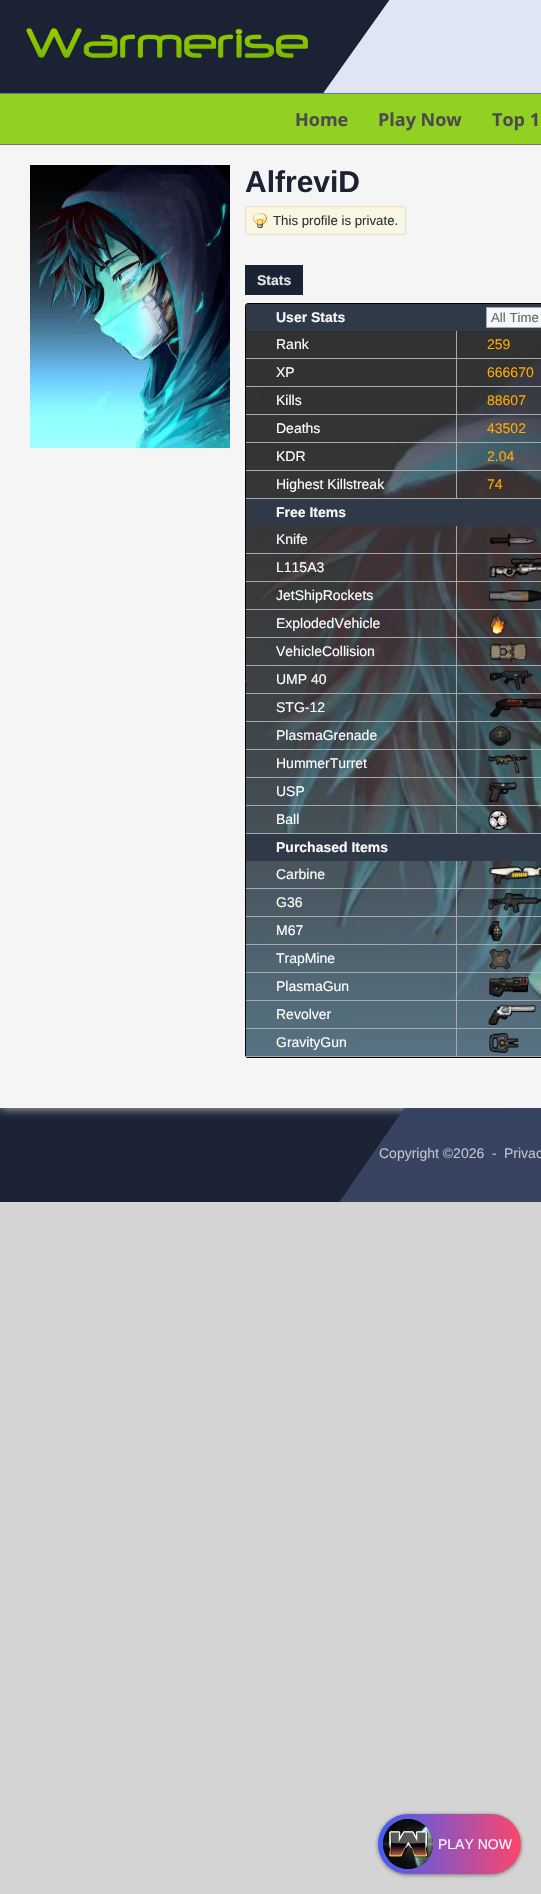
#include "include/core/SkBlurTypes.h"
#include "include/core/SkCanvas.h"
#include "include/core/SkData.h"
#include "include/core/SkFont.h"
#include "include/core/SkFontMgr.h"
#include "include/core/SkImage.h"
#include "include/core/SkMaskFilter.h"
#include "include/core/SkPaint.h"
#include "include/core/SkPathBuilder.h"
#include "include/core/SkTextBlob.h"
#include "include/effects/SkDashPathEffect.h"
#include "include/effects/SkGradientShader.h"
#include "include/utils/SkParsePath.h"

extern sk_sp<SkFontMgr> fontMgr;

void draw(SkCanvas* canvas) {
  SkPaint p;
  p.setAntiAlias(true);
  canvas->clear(SkColorSetRGB(212, 212, 212));
  p.setColor(SkColorSetRGB(223, 229, 243));
  canvas->drawRect(SkRect::MakeLTRB(323, 0, 541, 93), p);
  canvas->drawImageRect(SkImages::DeferredFromEncodedData(SkData::MakeFromFileName("images/1.png")), SkRect::MakeLTRB(0, 0, 390, 93), SkSamplingOptions());
  canvas->drawImageRect(SkImages::DeferredFromEncodedData(SkData::MakeFromFileName("images/2.png")), SkRect::MakeLTRB(26, 27, 308, 58), SkSamplingOptions());
  p.setColor(SkColorSetRGB(27, 34, 52));
  canvas->drawRect(SkRect::MakeLTRB(0, 1108, 541, 1202), p);
  p.setColor(SkColorSetRGB(205, 205, 205));
  p.setMaskFilter(SkMaskFilter::MakeBlur(kNormal_SkBlurStyle, 5));
  canvas->drawRect(SkRect::MakeLTRB(0, 145, 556, 1108), p);
  p.setMaskFilter(nullptr);
  p.setColor(SkColorSetRGB(146, 209, 33));
  canvas->drawRect(SkRect::MakeLTRB(0, 94, 541, 144), p);
  p.setColor(SkColorSetRGB(113, 118, 122));
  canvas->drawRect(SkRect::MakeLTRB(0, 93, 541, 94), p);
  canvas->drawRect(SkRect::MakeLTRB(0, 144, 541, 145), p);
  p.setColor(SkColorSetARGB(128, 16, 16, 17));
  p.setMaskFilter(SkMaskFilter::MakeBlur(kNormal_SkBlurStyle, 2));
  canvas->drawRoundRect(SkRect::MakeLTRB(378, 1815, 521, 1875), 30, 30, p);
  p.setMaskFilter(nullptr);
  {
    const SkColor colors[] = {SkColorSetRGB(63, 94, 251), SkColorSetRGB(252, 70, 107)};
    const float stops[] = {0, 1};
    const SkPoint ends[] = {{378, 1844}, {521, 1844}};
    p.setShader(SkGradientShader::MakeLinear(ends, colors, stops, 2, SkTileMode::kClamp));
    p.setAlpha(255);
  }
  canvas->drawRoundRect(SkRect::MakeLTRB(378, 1814, 521, 1874), 30, 30, p);
  p.setShader(nullptr);
  p.setColor(SkColorSetRGB(14, 14, 15));
  canvas->drawCircle(408, 1844, 25, p);
  canvas->drawImageRect(SkImages::DeferredFromEncodedData(SkData::MakeFromFileName("images/3.png")), SkRect::MakeLTRB(383, 1819, 433, 1869), SkSamplingOptions());
  p.setColor(SkColorSetRGB(245, 245, 245));
  canvas->drawRect(SkRect::MakeLTRB(0, 145, 541, 1108), p);
  canvas->drawImageRect(SkImages::DeferredFromEncodedData(SkData::MakeFromFileName("images/4.png")), SkRect::MakeLTRB(30, 165, 230, 448), SkSamplingOptions());
  p.setColor(SkColorSetRGB(250, 246, 228));
  canvas->drawRoundRect(SkRect::MakeLTRB(245, 206, 406, 235), 3, 3, p);
  canvas->drawImageRect(SkImages::DeferredFromEncodedData(SkData::MakeFromFileName("images/5.png")), SkRect::MakeLTRB(253, 213, 267, 228), SkSamplingOptions());
  p.setStyle(SkPaint::kStroke_Style);
  p.setStrokeWidth(1);
  p.setColor(SkColorSetRGB(228, 223, 198));
  canvas->drawRoundRect(SkRect::MakeLTRB(245.5f, 206.5f, 405.5f, 234.5f), 2.5f, 2.5f, p);
  p.setStyle(SkPaint::kFill_Style);
  p.setColor(SkColorSetRGB(27, 34, 52));
  canvas->drawRect(SkRect::MakeLTRB(245, 265, 303, 295), p);
  canvas->drawImageRect(SkImages::DeferredFromEncodedData(SkData::MakeFromFileName("images/6.png")), SkRect::MakeLTRB(246, 304, 541, 1058), SkSamplingOptions());
  p.setStyle(SkPaint::kStroke_Style);
  p.setColor(SK_ColorBLACK);
  canvas->drawRoundRect(SkRect::MakeLTRB(245.5f, 303.5f, 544.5f, 1057.5f), 2.5f, 2.5f, p);
  p.setStyle(SkPaint::kFill_Style);
  p.setColor(SkColorSetARGB(128, 97, 97, 97));
  canvas->drawRoundRect(SkRect::MakeLTRB(246, 304, 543, 1057), 2, 2, p);
  p.setColor(SkColorSetRGB(48, 57, 71));
  canvas->drawPath(SkPathBuilder().moveTo(248, 304).lineTo(456, 304).lineTo(456, 331).lineTo(246, 331).lineTo(246, 306).cubicTo(246, 305, 247, 304, 248, 304).close().detach(), p);
  canvas->drawRect(SkRect::MakeLTRB(456, 304, 541, 331), p);
  p.setColor(SkColorSetRGB(246, 247, 249));
  canvas->drawRect(SkRect::MakeLTRB(486.5f, 307.5f, 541.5f, 327.5f), p);
  p.setStyle(SkPaint::kStroke_Style);
  p.setColor(SkColorSetRGB(165, 169, 172));
  canvas->drawRect(SkRect::MakeLTRB(486.5f, 307.5f, 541.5f, 327.5f), p);
  p.setStyle(SkPaint::kFill_Style);
  p.setColor(SkColorSetRGB(165, 170, 173));
  canvas->drawRect(SkRect::MakeLTRB(456, 498, 541, 499), p);
  canvas->drawRect(SkRect::MakeLTRB(456, 470, 457, 499), p);
  canvas->drawRect(SkRect::MakeLTRB(456, 470, 541, 471), p);
  canvas->drawRect(SkRect::MakeLTRB(456, 442, 457, 471), p);
  canvas->drawRect(SkRect::MakeLTRB(456, 442, 541, 443), p);
  canvas->drawRect(SkRect::MakeLTRB(456, 414, 457, 443), p);
  canvas->drawRect(SkRect::MakeLTRB(456, 414, 541, 415), p);
  canvas->drawRect(SkRect::MakeLTRB(456, 386, 457, 415), p);
  canvas->drawRect(SkRect::MakeLTRB(456, 386, 541, 387), p);
  canvas->drawRect(SkRect::MakeLTRB(456, 358, 457, 387), p);
  canvas->drawRect(SkRect::MakeLTRB(456, 358, 541, 359), p);
  canvas->drawRect(SkRect::MakeLTRB(456, 331, 457, 359), p);
  canvas->drawRect(SkRect::MakeLTRB(246, 358, 457, 359), p);
  canvas->drawRect(SkRect::MakeLTRB(246, 386, 457, 387), p);
  canvas->drawRect(SkRect::MakeLTRB(246, 414, 457, 415), p);
  canvas->drawRect(SkRect::MakeLTRB(246, 442, 457, 443), p);
  canvas->drawRect(SkRect::MakeLTRB(246, 470, 457, 471), p);
  canvas->drawRect(SkRect::MakeLTRB(246, 498, 457, 499), p);
  p.setColor(SkColorSetRGB(48, 57, 71));
  canvas->drawRect(SkRect::MakeLTRB(246, 499, 541, 526), p);
  p.setColor(SkColorSetRGB(165, 170, 173));
  canvas->drawRect(SkRect::MakeLTRB(456, 833, 541, 834), p);
  canvas->drawRect(SkRect::MakeLTRB(456, 805, 457, 834), p);
  canvas->drawRect(SkRect::MakeLTRB(456, 805, 541, 806), p);
  canvas->drawRect(SkRect::MakeLTRB(456, 777, 457, 806), p);
  canvas->drawRect(SkRect::MakeLTRB(456, 777, 541, 778), p);
  canvas->drawRect(SkRect::MakeLTRB(456, 749, 457, 778), p);
  canvas->drawRect(SkRect::MakeLTRB(456, 749, 541, 750), p);
  canvas->drawRect(SkRect::MakeLTRB(456, 721, 457, 750), p);
  canvas->drawRect(SkRect::MakeLTRB(456, 721, 541, 722), p);
  canvas->drawRect(SkRect::MakeLTRB(456, 693, 457, 722), p);
  canvas->drawRect(SkRect::MakeLTRB(456, 693, 541, 694), p);
  canvas->drawRect(SkRect::MakeLTRB(456, 665, 457, 694), p);
  canvas->drawRect(SkRect::MakeLTRB(456, 665, 541, 666), p);
  canvas->drawRect(SkRect::MakeLTRB(456, 637, 457, 666), p);
  canvas->drawRect(SkRect::MakeLTRB(456, 637, 541, 638), p);
  canvas->drawRect(SkRect::MakeLTRB(456, 609, 457, 638), p);
  canvas->drawRect(SkRect::MakeLTRB(456, 609, 541, 610), p);
  canvas->drawRect(SkRect::MakeLTRB(456, 581, 457, 610), p);
  canvas->drawRect(SkRect::MakeLTRB(456, 581, 541, 582), p);
  canvas->drawRect(SkRect::MakeLTRB(456, 553, 457, 582), p);
  canvas->drawRect(SkRect::MakeLTRB(456, 553, 541, 554), p);
  canvas->drawRect(SkRect::MakeLTRB(456, 526, 457, 554), p);
  canvas->drawRect(SkRect::MakeLTRB(246, 553, 457, 554), p);
  canvas->drawImageRect(SkImages::DeferredFromEncodedData(SkData::MakeFromFileName("images/7.png")), SkRect::MakeLTRB(490, 533, 536, 547), SkSamplingOptions());
  canvas->drawRect(SkRect::MakeLTRB(246, 581, 457, 582), p);
  canvas->drawImageRect(SkImages::DeferredFromEncodedData(SkData::MakeFromFileName("images/8.png")), SkRect::MakeLTRB(489, 558, 541, 578), SkSamplingOptions());
  canvas->drawRect(SkRect::MakeLTRB(246, 609, 457, 610), p);
  canvas->drawImageRect(SkImages::DeferredFromEncodedData(SkData::MakeFromFileName("images/9.png")), SkRect::MakeLTRB(489, 590, 541, 602), SkSamplingOptions());
  canvas->drawRect(SkRect::MakeLTRB(246, 637, 457, 638), p);
  canvas->drawImageRect(SkImages::DeferredFromEncodedData(SkData::MakeFromFileName("images/10.png")), SkRect::MakeLTRB(490, 614, 506, 634), SkSamplingOptions());
  canvas->drawRect(SkRect::MakeLTRB(246, 665, 457, 666), p);
  canvas->drawImageRect(SkImages::DeferredFromEncodedData(SkData::MakeFromFileName("images/11.png")), SkRect::MakeLTRB(489, 642, 527, 662), SkSamplingOptions());
  canvas->drawRect(SkRect::MakeLTRB(246, 693, 457, 694), p);
  canvas->drawImageRect(SkImages::DeferredFromEncodedData(SkData::MakeFromFileName("images/12.png")), SkRect::MakeLTRB(490, 670, 533, 690), SkSamplingOptions());
  canvas->drawRect(SkRect::MakeLTRB(246, 721, 457, 722), p);
  canvas->drawImageRect(SkImages::DeferredFromEncodedData(SkData::MakeFromFileName("images/13.png")), SkRect::MakeLTRB(490, 698, 541, 718), SkSamplingOptions());
  canvas->drawRect(SkRect::MakeLTRB(246, 749, 457, 750), p);
  canvas->drawImageRect(SkImages::DeferredFromEncodedData(SkData::MakeFromFileName("images/14.png")), SkRect::MakeLTRB(489, 726, 511, 746), SkSamplingOptions());
  canvas->drawRect(SkRect::MakeLTRB(246, 777, 457, 778), p);
  canvas->drawImageRect(SkImages::DeferredFromEncodedData(SkData::MakeFromFileName("images/15.png")), SkRect::MakeLTRB(488, 754, 528, 774), SkSamplingOptions());
  canvas->drawRect(SkRect::MakeLTRB(246, 805, 457, 806), p);
  canvas->drawImageRect(SkImages::DeferredFromEncodedData(SkData::MakeFromFileName("images/16.png")), SkRect::MakeLTRB(489, 782, 517, 802), SkSamplingOptions());
  canvas->drawRect(SkRect::MakeLTRB(246, 833, 457, 834), p);
  canvas->drawImageRect(SkImages::DeferredFromEncodedData(SkData::MakeFromFileName("images/17.png")), SkRect::MakeLTRB(488, 810, 509, 830), SkSamplingOptions());
  p.setColor(SkColorSetRGB(48, 57, 71));
  canvas->drawRect(SkRect::MakeLTRB(246, 834, 541, 861), p);
  p.setColor(SkColorSetRGB(165, 170, 173));
  canvas->drawRect(SkRect::MakeLTRB(456, 1056, 541, 1057), p);
  canvas->drawRect(SkRect::MakeLTRB(456, 1028, 457, 1057), p);
  canvas->drawRect(SkRect::MakeLTRB(456, 1028, 541, 1029), p);
  canvas->drawRect(SkRect::MakeLTRB(456, 1000, 457, 1029), p);
  canvas->drawRect(SkRect::MakeLTRB(456, 1000, 541, 1001), p);
  canvas->drawRect(SkRect::MakeLTRB(456, 972, 457, 1001), p);
  canvas->drawRect(SkRect::MakeLTRB(456, 972, 541, 973), p);
  canvas->drawRect(SkRect::MakeLTRB(456, 944, 457, 973), p);
  canvas->drawRect(SkRect::MakeLTRB(456, 944, 541, 945), p);
  canvas->drawRect(SkRect::MakeLTRB(456, 916, 457, 945), p);
  canvas->drawRect(SkRect::MakeLTRB(456, 916, 541, 917), p);
  canvas->drawRect(SkRect::MakeLTRB(456, 888, 457, 917), p);
  canvas->drawRect(SkRect::MakeLTRB(456, 888, 541, 889), p);
  canvas->drawRect(SkRect::MakeLTRB(456, 861, 457, 889), p);
  canvas->drawRect(SkRect::MakeLTRB(246, 888, 457, 889), p);
  canvas->drawImageRect(SkImages::DeferredFromEncodedData(SkData::MakeFromFileName("images/18.png")), SkRect::MakeLTRB(489, 866, 541, 885), SkSamplingOptions());
  canvas->drawRect(SkRect::MakeLTRB(246, 916, 457, 917), p);
  canvas->drawImageRect(SkImages::DeferredFromEncodedData(SkData::MakeFromFileName("images/19.png")), SkRect::MakeLTRB(488, 893, 541, 913), SkSamplingOptions());
  canvas->drawRect(SkRect::MakeLTRB(246, 944, 457, 945), p);
  canvas->drawImageRect(SkImages::DeferredFromEncodedData(SkData::MakeFromFileName("images/20.png")), SkRect::MakeLTRB(488, 921, 503, 941), SkSamplingOptions());
  canvas->drawRect(SkRect::MakeLTRB(246, 972, 457, 973), p);
  canvas->drawImageRect(SkImages::DeferredFromEncodedData(SkData::MakeFromFileName("images/21.png")), SkRect::MakeLTRB(489, 949, 511, 969), SkSamplingOptions());
  canvas->drawRect(SkRect::MakeLTRB(246, 1000, 457, 1001), p);
  canvas->drawImageRect(SkImages::DeferredFromEncodedData(SkData::MakeFromFileName("images/22.png")), SkRect::MakeLTRB(489, 977, 529, 997), SkSamplingOptions());
  canvas->drawRect(SkRect::MakeLTRB(246, 1028, 457, 1029), p);
  canvas->drawImageRect(SkImages::DeferredFromEncodedData(SkData::MakeFromFileName("images/23.png")), SkRect::MakeLTRB(488, 1005, 536, 1025), SkSamplingOptions());
  canvas->drawRect(SkRect::MakeLTRB(246, 1056, 457, 1057), p);
  canvas->drawImageRect(SkImages::DeferredFromEncodedData(SkData::MakeFromFileName("images/24.png")), SkRect::MakeLTRB(489, 1033, 519, 1053), SkSamplingOptions());
  canvas->drawImageRect(SkImages::DeferredFromEncodedData(SkData::MakeFromFileName("images/25.png")), SkRect::MakeLTRB(339, 1108, 541, 1202), SkSamplingOptions());
  SkFont font1(fontMgr->matchFamilyStyle("Open Sans", SkFontStyle::Bold()), 18);
  font1.setSubpixel(true);
  p.setColor(SkColorSetRGB(75, 75, 78));
  canvas->drawString("Home", 295, 126, font1, p);
  canvas->drawString("Play Now", 378, 126, font1, p);
  canvas->drawString("Top 1", 492, 126, font1, p);
  SkFont font2(fontMgr->matchFamilyStyle("Liberation Sans", SkFontStyle::Normal()), 14);
  font2.setSubpixel(true);
  p.setColor(SkColorSetRGB(251, 245, 255));
  canvas->drawString("PLAY NOW", 438, 1849, font2, p);
  SkFont font3(fontMgr->matchFamilyStyle("Liberation Sans", SkFontStyle::Bold()), 30);
  font3.setSubpixel(true);
  p.setColor(SkColorSetRGB(27, 34, 52));
  canvas->drawString("AlfreviD", 245, 192, font3, p);
  SkFont font4(fontMgr->matchFamilyStyle("Liberation Sans", SkFontStyle::Normal()), 13.25f);
  font4.setSubpixel(true);
  p.setColor(SkColorSetRGB(49, 51, 56));
  canvas->drawString("This profile is private.", 273, 225, font4, p);
  SkFont font5(fontMgr->matchFamilyStyle("Liberation Sans", SkFontStyle::Bold()), 14);
  font5.setSubpixel(true);
  p.setColor(SkColorSetRGB(226, 226, 228));
  canvas->drawString("Stats", 257, 285, font5, p);
  p.setColor(SkColorSetRGB(249, 249, 249));
  canvas->drawString("User Stats", 276, 322, font5, p);
  p.setColor(SkColorSetRGB(101, 102, 104));
  canvas->drawString("All Time", 491, 322, font4, p);
  p.setColor(SK_ColorWHITE);
  canvas->drawString("Rank", 276, 349, font2, p);
  p.setColor(SkColorSetRGB(255, 170, 0));
  canvas->drawString("259", 487, 349, font2, p);
  p.setColor(SK_ColorWHITE);
  canvas->drawString("XP", 276, 377, font2, p);
  p.setColor(SkColorSetRGB(255, 170, 0));
  canvas->drawString("666670", 487, 377, font2, p);
  p.setColor(SK_ColorWHITE);
  canvas->drawString("Kills", 276, 405, font2, p);
  p.setColor(SkColorSetRGB(255, 170, 0));
  canvas->drawString("88607", 487, 405, font2, p);
  p.setColor(SK_ColorWHITE);
  canvas->drawString("Deaths", 276, 433, font2, p);
  p.setColor(SkColorSetRGB(255, 170, 0));
  canvas->drawString("43502", 487, 433, font2, p);
  p.setColor(SK_ColorWHITE);
  canvas->drawString("KDR", 276, 461, font2, p);
  p.setColor(SkColorSetRGB(255, 170, 0));
  canvas->drawString("2.04", 487, 461, font2, p);
  p.setColor(SK_ColorWHITE);
  canvas->drawString("Highest Killstreak", 276, 489, font2, p);
  p.setColor(SkColorSetRGB(255, 170, 0));
  canvas->drawString("74", 487, 489, font2, p);
  p.setColor(SkColorSetRGB(249, 249, 249));
  canvas->drawString("Free Items", 276, 517, font5, p);
  p.setColor(SK_ColorWHITE);
  canvas->drawString("Knife", 276, 544, font2, p);
  canvas->drawString("L115A3", 276, 572, font2, p);
  canvas->drawString("JetShipRockets", 276, 600, font2, p);
  canvas->drawString("ExplodedVehicle", 276, 628, font2, p);
  canvas->drawString("VehicleCollision", 276, 656, font2, p);
  canvas->drawString("UMP 40", 276, 684, font2, p);
  canvas->drawString("STG-12", 276, 712, font2, p);
  canvas->drawString("PlasmaGrenade", 276, 740, font2, p);
  canvas->drawString("HummerTurret", 276, 768, font2, p);
  canvas->drawString("USP", 276, 796, font2, p);
  canvas->drawString("Ball", 276, 824, font2, p);
  p.setColor(SkColorSetRGB(249, 249, 249));
  canvas->drawString("Purchased Items", 276, 852, font5, p);
  p.setColor(SK_ColorWHITE);
  canvas->drawString("Carbine", 276, 879, font2, p);
  canvas->drawString("G36", 276, 907, font2, p);
  canvas->drawString("M67", 276, 935, font2, p);
  canvas->drawString("TrapMine", 276, 963, font2, p);
  canvas->drawString("PlasmaGun", 276, 991, font2, p);
  canvas->drawString("Revolver", 276, 1019, font2, p);
  canvas->drawString("GravityGun", 276, 1047, font2, p);
  p.setColor(SkColorSetRGB(190, 194, 205));
  canvas->drawString("Copyright ©2026", 379, 1158, font2, p);
  canvas->drawString("-", 492, 1158, font2, p);
  canvas->drawString("Privac", 504, 1158, font2, p);
}
